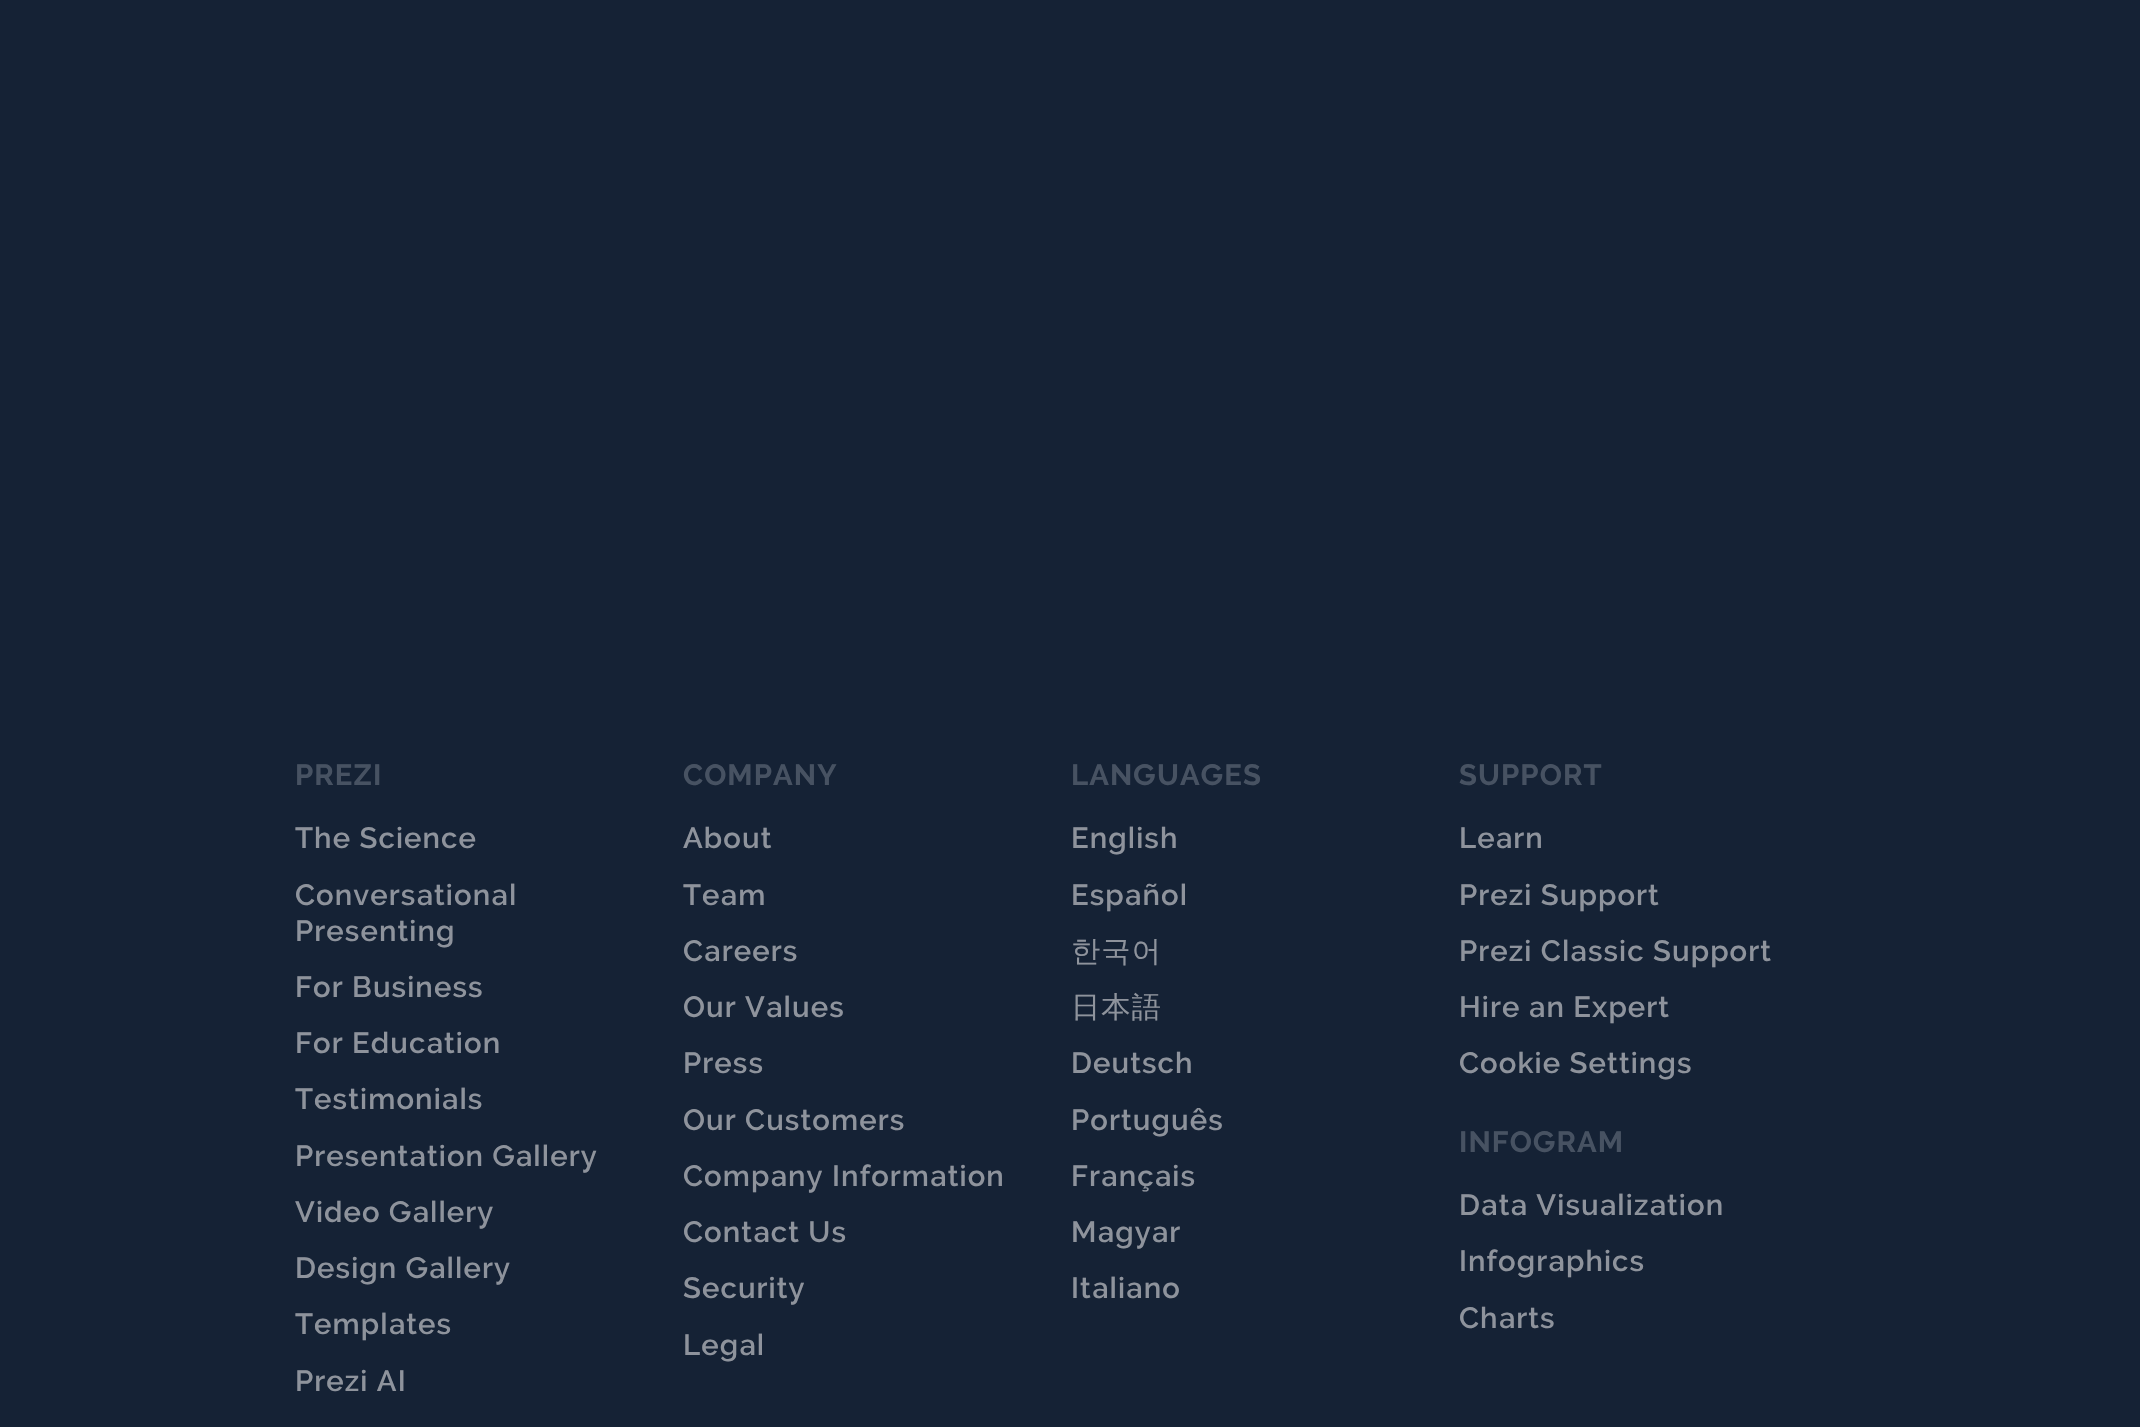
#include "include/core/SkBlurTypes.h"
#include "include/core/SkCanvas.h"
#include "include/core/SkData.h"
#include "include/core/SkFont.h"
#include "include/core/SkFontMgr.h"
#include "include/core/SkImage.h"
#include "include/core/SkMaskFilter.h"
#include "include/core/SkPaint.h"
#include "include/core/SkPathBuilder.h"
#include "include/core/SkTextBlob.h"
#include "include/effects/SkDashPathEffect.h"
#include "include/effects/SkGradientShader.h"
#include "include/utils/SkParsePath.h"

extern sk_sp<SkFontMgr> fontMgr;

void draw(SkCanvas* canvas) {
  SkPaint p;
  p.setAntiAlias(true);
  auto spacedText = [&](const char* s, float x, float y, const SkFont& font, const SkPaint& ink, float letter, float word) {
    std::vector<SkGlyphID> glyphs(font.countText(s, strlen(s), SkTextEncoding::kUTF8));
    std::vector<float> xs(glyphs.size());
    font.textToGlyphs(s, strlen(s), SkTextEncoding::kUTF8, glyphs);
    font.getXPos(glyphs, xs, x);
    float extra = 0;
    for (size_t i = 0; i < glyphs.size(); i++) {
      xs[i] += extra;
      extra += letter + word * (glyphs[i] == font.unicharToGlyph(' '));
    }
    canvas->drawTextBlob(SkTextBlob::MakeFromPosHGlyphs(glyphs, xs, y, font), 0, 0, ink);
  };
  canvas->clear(SkColorSetRGB(21, 34, 53));
  SkFont font1(fontMgr->matchFamilyStyle("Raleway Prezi", SkFontStyle::Bold()), 29.25f);
  font1.setSubpixel(true);
  p.setColor(SkColorSetRGB(71, 82, 98));
  spacedText("PREZI", 295, 785, font1, p, 1.1f, 0);
  SkFont font2(fontMgr->matchFamilyStyle("Raleway Prezi", SkFontStyle(600, SkFontStyle::kNormal_Width, SkFontStyle::kUpright_Slant)), 29.25f);
  font2.setSubpixel(true);
  p.setColor(SkColorSetRGB(142, 147, 156));
  spacedText("The Science", 295, 848, font2, p, 1.1f, 0);
  spacedText("Conversational", 295, 905, font2, p, 1.1f, 0);
  spacedText("Presenting", 295, 941, font2, p, 1.1f, 0);
  spacedText("For Business", 295, 997, font2, p, 1.1f, 0);
  spacedText("For Education", 295, 1053, font2, p, 1.1f, 0);
  spacedText("Testimonials", 295, 1109, font2, p, 1.1f, 0);
  spacedText("Presentation Gallery", 295, 1166, font2, p, 1.1f, 0);
  spacedText("Video Gallery", 295, 1222, font2, p, 1.1f, 0);
  spacedText("Design Gallery", 295, 1278, font2, p, 1.1f, 0);
  spacedText("Templates", 295, 1334, font2, p, 1.1f, 0);
  spacedText("Prezi AI", 295, 1391, font2, p, 1.1f, 0);
  p.setColor(SkColorSetRGB(71, 82, 98));
  spacedText("COMPANY", 683, 785, font1, p, 1.1f, 0);
  p.setColor(SkColorSetRGB(142, 147, 156));
  spacedText("About", 683, 848, font2, p, 1.1f, 0);
  spacedText("Team", 683, 905, font2, p, 1.1f, 0);
  spacedText("Careers", 683, 961, font2, p, 1.1f, 0);
  spacedText("Our Values", 683, 1017, font2, p, 1.1f, 0);
  spacedText("Press", 683, 1073, font2, p, 1.1f, 0);
  spacedText("Our Customers", 683, 1130, font2, p, 1.1f, 0);
  spacedText("Company Information", 683, 1186, font2, p, 1.1f, 0);
  spacedText("Contact Us", 683, 1242, font2, p, 1.1f, 0);
  spacedText("Security", 683, 1298, font2, p, 1.1f, 0);
  spacedText("Legal", 683, 1355, font2, p, 1.1f, 0);
  p.setColor(SkColorSetRGB(71, 82, 98));
  spacedText("LANGUAGES", 1071, 785, font1, p, 1.1f, 0);
  p.setColor(SkColorSetRGB(142, 147, 156));
  spacedText("English", 1071, 848, font2, p, 1.1f, 0);
  spacedText("Español", 1071, 905, font2, p, 1.1f, 0);
  SkFont font3(fontMgr->matchFamilyStyle("WenQuanYi Zen Hei", SkFontStyle(500, SkFontStyle::kNormal_Width, SkFontStyle::kUpright_Slant)), 29.25f);
  font3.setSubpixel(true);
  spacedText("한국어", 1071, 961, font3, p, 1.1f, 0);
  spacedText("日本語", 1071, 1017, font3, p, 1.1f, 0);
  spacedText("Deutsch", 1071, 1073, font2, p, 1.1f, 0);
  spacedText("Português", 1071, 1130, font2, p, 1.1f, 0);
  spacedText("Français", 1071, 1186, font2, p, 1.1f, 0);
  spacedText("Magyar", 1071, 1242, font2, p, 1.1f, 0);
  spacedText("Italiano", 1071, 1298, font2, p, 1.1f, 0);
  p.setColor(SkColorSetRGB(71, 82, 98));
  spacedText("SUPPORT", 1459, 785, font1, p, 1.1f, 0);
  p.setColor(SkColorSetRGB(142, 147, 156));
  spacedText("Learn", 1459, 848, font2, p, 1.1f, 0);
  spacedText("Prezi Support", 1459, 905, font2, p, 1.1f, 0);
  spacedText("Prezi Classic Support", 1459, 961, font2, p, 1.1f, 0);
  spacedText("Hire an Expert", 1459, 1017, font2, p, 1.1f, 0);
  spacedText("Cookie Settings", 1459, 1073, font2, p, 1.1f, 0);
  p.setColor(SkColorSetRGB(71, 82, 98));
  spacedText("INFOGRAM", 1459, 1152, font1, p, 1.1f, 0);
  p.setColor(SkColorSetRGB(142, 147, 156));
  spacedText("Data Visualization", 1459, 1215, font2, p, 1.1f, 0);
  spacedText("Infographics", 1459, 1271, font2, p, 1.1f, 0);
  spacedText("Charts", 1459, 1328, font2, p, 1.1f, 0);
}
